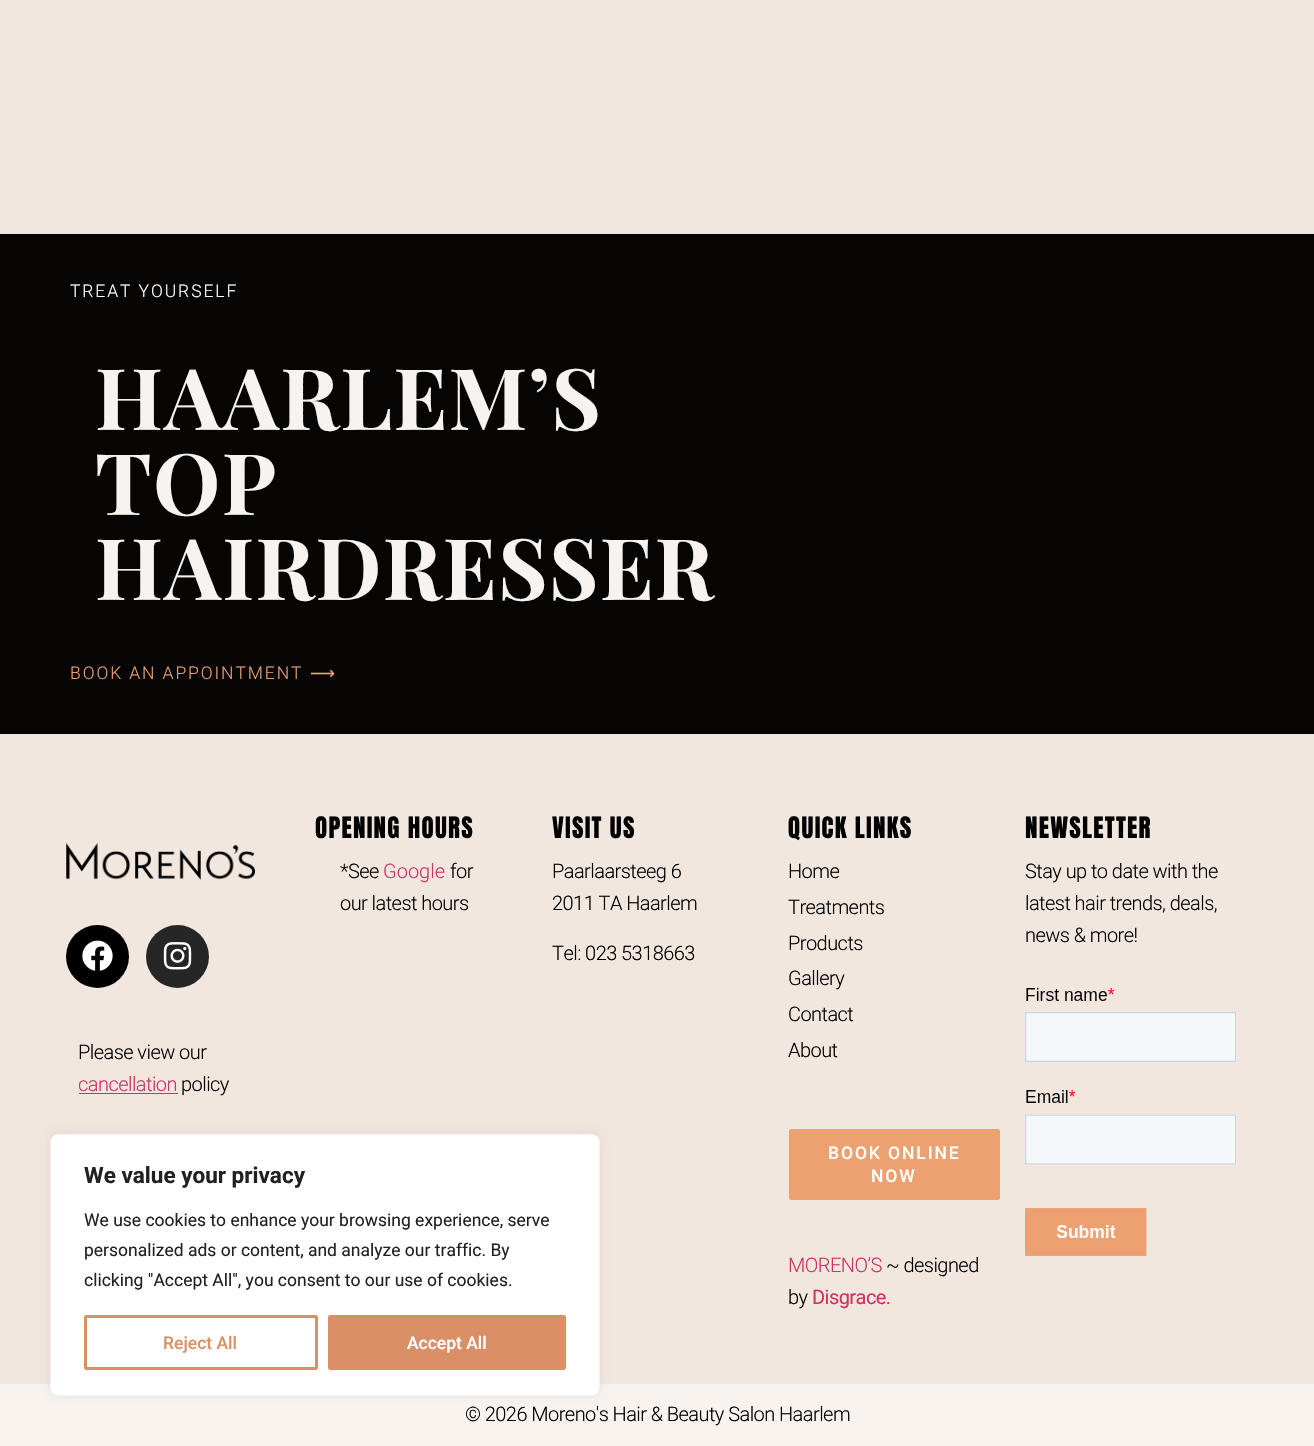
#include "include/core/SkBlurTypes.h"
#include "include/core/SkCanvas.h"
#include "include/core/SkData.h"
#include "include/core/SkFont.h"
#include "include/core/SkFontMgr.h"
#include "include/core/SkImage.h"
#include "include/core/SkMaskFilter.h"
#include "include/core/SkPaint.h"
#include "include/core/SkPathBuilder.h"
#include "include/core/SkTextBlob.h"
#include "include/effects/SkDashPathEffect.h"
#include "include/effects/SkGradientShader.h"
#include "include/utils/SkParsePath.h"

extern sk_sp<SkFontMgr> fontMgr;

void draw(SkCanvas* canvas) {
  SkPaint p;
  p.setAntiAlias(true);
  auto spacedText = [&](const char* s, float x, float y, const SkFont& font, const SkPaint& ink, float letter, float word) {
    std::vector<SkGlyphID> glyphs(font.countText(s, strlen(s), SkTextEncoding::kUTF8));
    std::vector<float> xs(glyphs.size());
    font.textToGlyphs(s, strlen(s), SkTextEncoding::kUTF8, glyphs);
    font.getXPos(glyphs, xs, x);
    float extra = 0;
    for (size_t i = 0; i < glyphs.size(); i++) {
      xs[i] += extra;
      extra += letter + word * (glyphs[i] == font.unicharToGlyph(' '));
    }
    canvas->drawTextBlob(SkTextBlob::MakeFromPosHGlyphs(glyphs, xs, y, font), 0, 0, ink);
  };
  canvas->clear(SkColorSetRGB(242, 231, 223));
  p.setColor(SkColorSetRGB(6, 5, 4));
  canvas->drawRect(SkRect::MakeLTRB(0, 234, 1314, 734), p);
  p.setColor(SkColorSetRGB(237, 161, 112));
  canvas->drawRoundRect(SkRect::MakeLTRB(789, 1129, 1000, 1200), 2.5f, 2.5f, p);
  canvas->drawImageRect(SkImages::DeferredFromEncodedData(SkData::MakeFromFileName("images/1.png")), SkRect::MakeLTRB(1025, 988, 1236, 1256), SkSamplingOptions());
  canvas->drawImageRect(SkImages::DeferredFromEncodedData(SkData::MakeFromFileName("images/2.png")), SkRect::MakeLTRB(66, 843, 255, 880), SkSamplingOptions());
  p.setColor(SK_ColorBLACK);
  canvas->drawCircle(97.5f, 956.5f, 31.5f, p);
  canvas->drawImageRect(SkImages::DeferredFromEncodedData(SkData::MakeFromFileName("images/3.png")), SkRect::MakeLTRB(82, 940, 113, 971), SkSamplingOptions());
  p.setColor(SkColorSetRGB(38, 38, 38));
  canvas->drawCircle(177.5f, 956.5f, 31.5f, p);
  canvas->drawImageRect(SkImages::DeferredFromEncodedData(SkData::MakeFromFileName("images/4.png")), SkRect::MakeLTRB(163, 942, 192, 970), SkSamplingOptions());
  p.setColor(SkColorSetRGB(204, 51, 102));
  canvas->drawRect(SkRect::MakeLTRB(79, 1093, 178, 1094), p);
  p.setColor(SkColorSetRGB(248, 243, 239));
  canvas->drawRect(SkRect::MakeLTRB(0, 1384, 1314, 1446), p);
  p.setColor(SkColorSetARGB(77, 172, 171, 171));
  p.setMaskFilter(SkMaskFilter::MakeBlur(kNormal_SkBlurStyle, 6));
  canvas->drawRoundRect(SkRect::MakeLTRB(50, 1133, 600, 1395), 8, 8, p);
  p.setMaskFilter(nullptr);
  p.setColor(SK_ColorWHITE);
  canvas->drawRoundRect(SkRect::MakeLTRB(50.5f, 1134.5f, 599.5f, 1395.5f), 7.5f, 7.5f, p);
  p.setStyle(SkPaint::kStroke_Style);
  p.setStrokeWidth(1);
  p.setColor(SkColorSetRGB(244, 244, 244));
  canvas->drawRoundRect(SkRect::MakeLTRB(50.5f, 1134.5f, 599.5f, 1395.5f), 7.5f, 7.5f, p);
  p.setStrokeWidth(3);
  p.setColor(SkColorSetRGB(217, 144, 102));
  canvas->drawRoundRect(SkRect::MakeLTRB(85.5f, 1316.5f, 316.5f, 1368.5f), 1, 1, p);
  p.setStyle(SkPaint::kFill_Style);
  canvas->drawRoundRect(SkRect::MakeLTRB(329.5f, 1316.5f, 564.5f, 1368.5f), 1, 1, p);
  p.setStyle(SkPaint::kStroke_Style);
  canvas->drawRoundRect(SkRect::MakeLTRB(329.5f, 1316.5f, 564.5f, 1368.5f), 1, 1, p);
  SkFont font1(fontMgr->matchFamilyStyle("Roboto", SkFontStyle(300, SkFontStyle::kNormal_Width, SkFontStyle::kUpright_Slant)), 17.5f);
  font1.setSubpixel(true);
  p.setStyle(SkPaint::kFill_Style);
  p.setColor(SK_ColorWHITE);
  spacedText("TREAT YOURSELF", 70, 297, font1, p, 1.9f, 0);
  SkFont font2(fontMgr->matchFamilyStyle("Playfair Display", SkFontStyle::Bold()), 85);
  font2.setSubpixel(true);
  p.setColor(SkColorSetRGB(248, 243, 239));
  spacedText("HAARLEM’S", 95, 430, font2, p, 1.25f, 0);
  spacedText("TOP", 95, 515, font2, p, 1.25f, 0);
  spacedText("HAIRDRESSER", 95, 600, font2, p, 1.25f, 0);
  p.setColor(SkColorSetRGB(237, 161, 112));
  spacedText("BOOK AN APPOINTMENT", 70, 679, font1, p, 1.9f, 0);
  SkFont font3(fontMgr->matchFamilyStyle("DejaVu Sans", SkFontStyle::Normal()), 17.5f);
  font3.setSubpixel(true);
  spacedText("⟶", 310, 679, font3, p, 1.9f, 0);
  SkFont font4(fontMgr->matchFamilyStyle("Anton", SkFontStyle::Normal()), 25);
  font4.setSubpixel(true);
  p.setColor(SK_ColorBLACK);
  spacedText("OPENING HOURS", 315, 838, font4, p, 1.25f, 0);
  SkFont font5(fontMgr->matchFamilyStyle("Roboto", SkFontStyle(300, SkFontStyle::kNormal_Width, SkFontStyle::kUpright_Slant)), 20);
  font5.setSubpixel(true);
  spacedText("*See", 340, 878, font5, p, -0.55f, 0);
  p.setColor(SkColorSetRGB(204, 51, 102));
  canvas->drawString("Google", 383, 878, font5, p);
  p.setColor(SK_ColorBLACK);
  spacedText("for", 450, 878, font5, p, -0.55f, 0);
  spacedText("our latest hours", 340, 910, font5, p, -0.55f, 0);
  spacedText("VISIT US", 552, 838, font4, p, 1.25f, 0);
  spacedText("Paarlaarsteeg 6", 552, 878, font5, p, -0.55f, 0);
  spacedText("2011 TA Haarlem", 552, 910, font5, p, -0.55f, 0);
  spacedText("Tel: 023 5318663", 552, 960, font5, p, -0.55f, 0);
  spacedText("QUICK LINKS", 788, 838, font4, p, 1.25f, 0);
  spacedText("Home", 788, 878, font5, p, -0.55f, 0);
  spacedText("Treatments", 788, 914, font5, p, -0.55f, 0);
  spacedText("Products", 788, 950, font5, p, -0.55f, 0);
  spacedText("Gallery", 788, 985, font5, p, -0.55f, 0);
  spacedText("Contact", 788, 1021, font5, p, -0.55f, 0);
  spacedText("About", 788, 1057, font5, p, -0.55f, 0);
  SkFont font6(fontMgr->matchFamilyStyle("Roboto", SkFontStyle(500, SkFontStyle::kNormal_Width, SkFontStyle::kUpright_Slant)), 17.5f);
  font6.setSubpixel(true);
  p.setColor(SK_ColorWHITE);
  spacedText("BOOK ONLINE", 828, 1159, font6, p, 1.9f, 0);
  spacedText("NOW", 871, 1182, font6, p, 1.9f, 0);
  p.setColor(SkColorSetRGB(204, 51, 102));
  spacedText("MORENO’S", 788, 1272, font5, p, -0.55f, 0);
  p.setColor(SK_ColorBLACK);
  spacedText("~ designed", 886, 1272, font5, p, -0.55f, 0);
  spacedText("by", 788, 1304, font5, p, -0.55f, 0);
  SkFont font7(fontMgr->matchFamilyStyle("Roboto", SkFontStyle::Normal()), 20);
  font7.setSubpixel(true);
  p.setColor(SkColorSetRGB(204, 51, 102));
  spacedText("Disgrace.", 812, 1304, font7, p, -0.55f, 0);
  p.setColor(SK_ColorBLACK);
  spacedText("NEWSLETTER", 1025, 838, font4, p, 1.25f, 0);
  spacedText("Stay up to date with the", 1025, 878, font5, p, -0.55f, 0);
  spacedText("latest hair trends, deals,", 1025, 910, font5, p, -0.55f, 0);
  spacedText("news & more!", 1025, 942, font5, p, -0.55f, 0);
  spacedText("Please view our", 78, 1059, font5, p, -0.55f, 0);
  p.setColor(SkColorSetRGB(204, 51, 102));
  spacedText("cancellation", 78, 1091, font5, p, -0.55f, 0);
  p.setColor(SK_ColorBLACK);
  spacedText("policy", 181, 1091, font5, p, -0.55f, 0);
  spacedText("© 2026 Moreno's Hair & Beauty Salon Haarlem", 465, 1421, font5, p, -0.55f, 0);
  SkFont font8(fontMgr->matchFamilyStyle("Roboto", SkFontStyle::Bold()), 22.5f);
  font8.setSubpixel(true);
  p.setColor(SkColorSetRGB(33, 33, 33));
  canvas->drawString("We value your privacy", 84, 1183, font8, p);
  SkFont font9(fontMgr->matchFamilyStyle("Roboto", SkFontStyle::Normal()), 17.5f);
  font9.setSubpixel(true);
  canvas->drawString("We use cookies to enhance your browsing experience, serve", 84, 1226, font9, p);
  canvas->drawString("personalized ads or content, and analyze our traffic. By", 84, 1256, font9, p);
  canvas->drawString("clicking \"Accept All\", you consent to our use of cookies.", 84, 1286, font9, p);
  p.setColor(SkColorSetRGB(217, 144, 102));
  canvas->drawString("Reject All", 163, 1349, font6, p);
  p.setColor(SK_ColorWHITE);
  canvas->drawString("Accept All", 407, 1349, font6, p);
}
